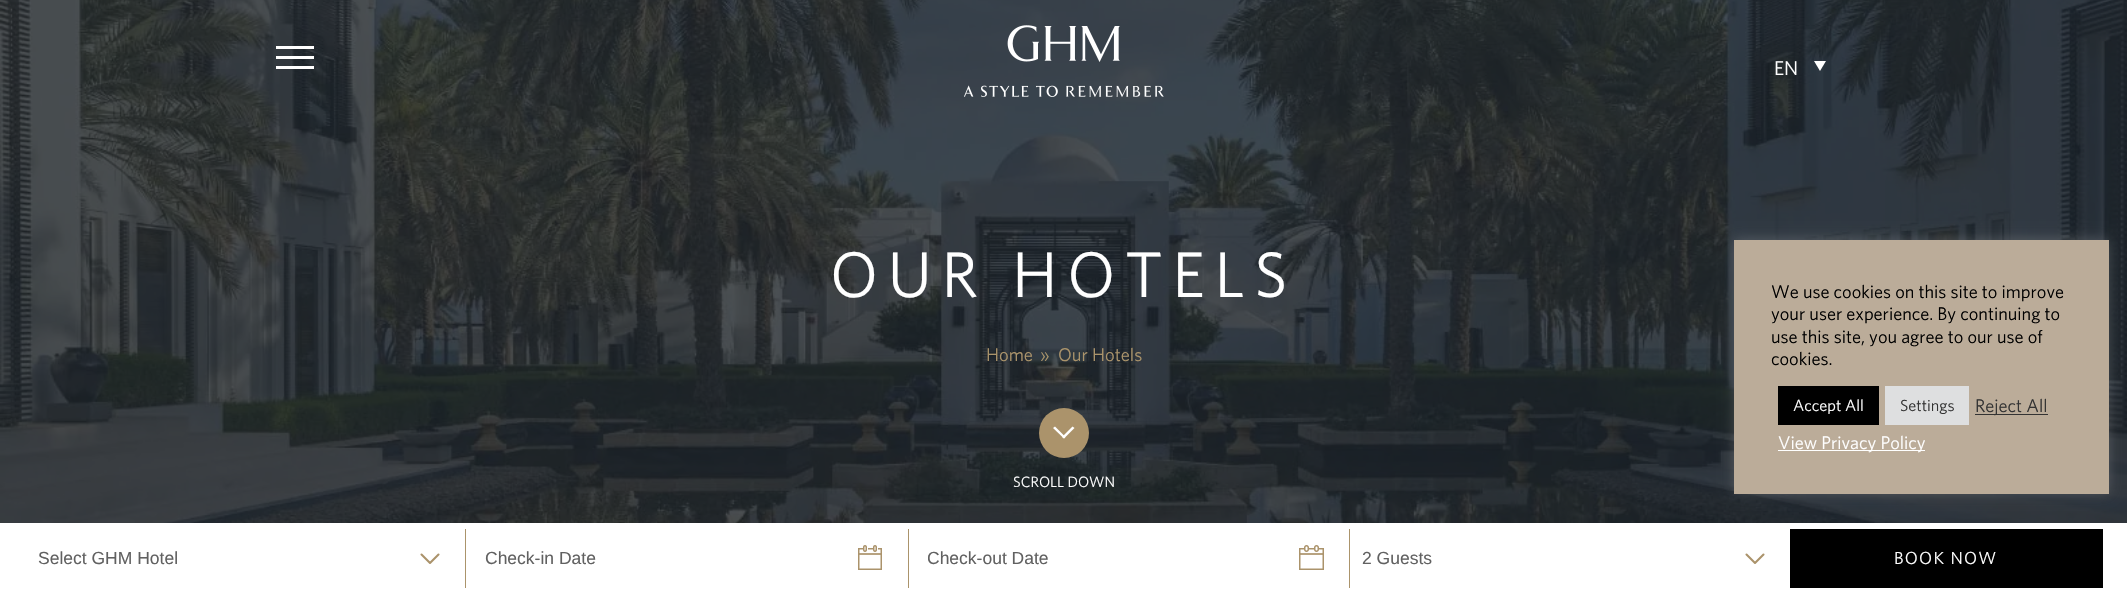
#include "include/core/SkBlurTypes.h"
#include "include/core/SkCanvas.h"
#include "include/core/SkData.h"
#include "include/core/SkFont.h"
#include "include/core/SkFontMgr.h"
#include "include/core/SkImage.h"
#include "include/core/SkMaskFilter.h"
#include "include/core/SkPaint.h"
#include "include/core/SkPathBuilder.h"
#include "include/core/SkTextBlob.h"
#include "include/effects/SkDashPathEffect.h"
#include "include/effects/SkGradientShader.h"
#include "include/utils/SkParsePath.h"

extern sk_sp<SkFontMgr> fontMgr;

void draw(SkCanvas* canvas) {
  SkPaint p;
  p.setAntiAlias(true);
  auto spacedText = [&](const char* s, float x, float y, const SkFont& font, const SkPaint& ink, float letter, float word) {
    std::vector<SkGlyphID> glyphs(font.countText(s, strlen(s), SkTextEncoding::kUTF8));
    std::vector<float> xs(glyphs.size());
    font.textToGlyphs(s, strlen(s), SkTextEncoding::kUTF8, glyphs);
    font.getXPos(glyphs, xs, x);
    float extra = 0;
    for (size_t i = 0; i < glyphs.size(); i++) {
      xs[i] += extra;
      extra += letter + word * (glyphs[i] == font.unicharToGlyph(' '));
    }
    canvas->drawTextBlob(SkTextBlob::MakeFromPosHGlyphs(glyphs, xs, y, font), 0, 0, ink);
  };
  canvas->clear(SK_ColorWHITE);
  canvas->drawImageRect(SkImages::DeferredFromEncodedData(SkData::MakeFromFileName("images/2.png")), SkRect::MakeLTRB(0, 0, 2127, 523), SkSamplingOptions());
  p.setColor(SK_ColorWHITE);
  canvas->drawRect(SkRect::MakeLTRB(276, 56, 314, 59), p);
  canvas->drawRect(SkRect::MakeLTRB(276, 46, 314, 49), p);
  canvas->drawRect(SkRect::MakeLTRB(276, 66, 314, 69), p);
  canvas->drawImageRect(SkImages::DeferredFromEncodedData(SkData::MakeFromFileName("images/1.png")), SkRect::MakeLTRB(964, 25, 1164, 98), SkSamplingOptions());
  canvas->drawPath(SkPathBuilder().moveTo(1814, 61).lineTo(1826, 61).lineTo(1820, 71).close().detach(), p);
  p.setColor(SkColorSetRGB(171, 147, 107));
  canvas->drawCircle(1064, 433, 25, p);
  p.setColor(SK_ColorWHITE);
  canvas->drawPath(SkPathBuilder().moveTo(1072.5f, 426.5f).lineTo(1074.5f, 428).lineTo(1064, 438.5f).lineTo(1062, 437).close().detach(), p);
  canvas->drawPath(SkPathBuilder().moveTo(1055, 426.5f).lineTo(1065.5f, 437).lineTo(1064, 438.5f).lineTo(1053, 428).close().detach(), p);
  p.setColor(SkColorSetRGB(171, 148, 107));
  canvas->drawRect(SkRect::MakeLTRB(465, 529, 466, 588), p);
  p.setStyle(SkPaint::kStroke_Style);
  p.setStrokeWidth(2.1f);
  p.setStrokeCap(SkPaint::kRound_Cap);
  p.setColor(SkColorSetRGB(171, 147, 107));
  canvas->drawPath(SkPathBuilder().moveTo(421.5f, 554.5f).lineTo(430, 563).moveTo(438.5f, 554.5f).lineTo(430, 563).detach(), p);
  p.setStyle(SkPaint::kFill_Style);
  p.setColor(SkColorSetRGB(171, 148, 107));
  canvas->drawRect(SkRect::MakeLTRB(908, 529, 909, 588), p);
  canvas->drawImageRect(SkImages::DeferredFromEncodedData(SkData::MakeFromFileName("images/3.png")), SkRect::MakeLTRB(858, 545, 882, 570), SkSamplingOptions());
  canvas->drawRect(SkRect::MakeLTRB(1349, 529, 1350, 588), p);
  canvas->drawImageRect(SkImages::DeferredFromEncodedData(SkData::MakeFromFileName("images/4.png")), SkRect::MakeLTRB(1299, 545, 1324, 570), SkSamplingOptions());
  p.setStyle(SkPaint::kStroke_Style);
  p.setColor(SkColorSetRGB(171, 147, 107));
  canvas->drawPath(SkPathBuilder().moveTo(1746.5f, 554.5f).lineTo(1755, 563).moveTo(1763.5f, 554.5f).lineTo(1755, 563).detach(), p);
  p.setStyle(SkPaint::kFill_Style);
  p.setColor(SK_ColorBLACK);
  canvas->drawRect(SkRect::MakeLTRB(1790, 529, 2103, 588), p);
  p.setColor(SkColorSetARGB(77, 172, 171, 171));
  p.setMaskFilter(SkMaskFilter::MakeBlur(kNormal_SkBlurStyle, 6));
  canvas->drawRect(SkRect::MakeLTRB(1734, 239, 2109, 493), p);
  p.setMaskFilter(nullptr);
  p.setColor(SkColorSetRGB(187, 172, 153));
  canvas->drawRect(SkRect::MakeLTRB(1734, 240, 2109, 494), p);
  p.setColor(SK_ColorBLACK);
  canvas->drawRect(SkRect::MakeLTRB(1778, 386, 1879, 425), p);
  p.setColor(SkColorSetRGB(222, 223, 224));
  canvas->drawRect(SkRect::MakeLTRB(1885, 386, 1969, 425), p);
  p.setColor(SkColorSetRGB(51, 51, 51));
  canvas->drawRect(SkRect::MakeLTRB(1975, 414, 2048, 415), p);
  p.setColor(SK_ColorWHITE);
  canvas->drawRect(SkRect::MakeLTRB(1778, 450, 1925, 451), p);
  SkFont font1(fontMgr->matchFamilyStyle("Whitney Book", SkFontStyle::Normal()), 20);
  font1.setSubpixel(true);
  canvas->drawString("EN", 1774, 75, font1, p);
  SkFont font2(fontMgr->matchFamilyStyle("Whitney Book", SkFontStyle::Normal()), 64.5f);
  font2.setSubpixel(true);
  spacedText("OUR HOTELS", 830, 297, font2, p, 9.75f, 0);
  SkFont font3(fontMgr->matchFamilyStyle("Whitney Book", SkFontStyle::Normal()), 18.5f);
  font3.setSubpixel(true);
  p.setColor(SkColorSetRGB(171, 148, 107));
  canvas->drawString("Home", 986, 361, font3, p);
  canvas->drawString("»", 1040, 361, font3, p);
  canvas->drawString("Our Hotels", 1058, 361, font3, p);
  SkFont font4(fontMgr->matchFamilyStyle("Whitney Book", SkFontStyle::Normal()), 15);
  font4.setSubpixel(true);
  p.setColor(SK_ColorWHITE);
  canvas->drawString("SCROLL DOWN", 1013, 487, font4, p);
  SkFont font5(fontMgr->matchFamilyStyle("Liberation Sans", SkFontStyle::Normal()), 17.5f);
  font5.setSubpixel(true);
  p.setColor(SkColorSetRGB(97, 97, 97));
  canvas->drawString("Select GHM Hotel", 38, 564, font5, p);
  canvas->drawString("Check-in Date", 485, 564, font5, p);
  canvas->save();
  canvas->clipRect(SkRect::MakeLTRB(928, 548, 1330, 568));
  canvas->drawString("Check-out Date", 927, 564, font5, p);
  canvas->restore();
  canvas->drawString("2 Guests", 1362, 564, font5, p);
  SkFont font6(fontMgr->matchFamilyStyle("Whitney Book", SkFontStyle::Normal()), 17.5f);
  font6.setSubpixel(true);
  p.setColor(SK_ColorWHITE);
  spacedText("BOOK NOW", 1894, 564, font6, p, 1.25f, 0);
  SkFont font7(fontMgr->matchFamilyStyle("Whitney Book", SkFontStyle::Normal()), 18.3f);
  font7.setSubpixel(true);
  p.setColor(SK_ColorBLACK);
  canvas->drawString("We use cookies on this site to improve", 1771, 298, font7, p);
  canvas->drawString("your user experience. By continuing to", 1771, 320, font7, p);
  canvas->drawString("use this site, you agree to our use of", 1771, 343, font7, p);
  canvas->drawString("cookies.", 1771, 365, font7, p);
  SkFont font8(fontMgr->matchFamilyStyle("Whitney Book", SkFontStyle::Normal()), 16.25f);
  font8.setSubpixel(true);
  p.setColor(SK_ColorWHITE);
  canvas->drawString("Accept All", 1793, 411, font8, p);
  p.setColor(SkColorSetRGB(51, 51, 51));
  canvas->drawString("Settings", 1900, 411, font8, p);
  canvas->drawString("Reject All", 1975, 412, font7, p);
  p.setColor(SK_ColorWHITE);
  canvas->drawString("View Privacy Policy", 1778, 449, font7, p);
}
